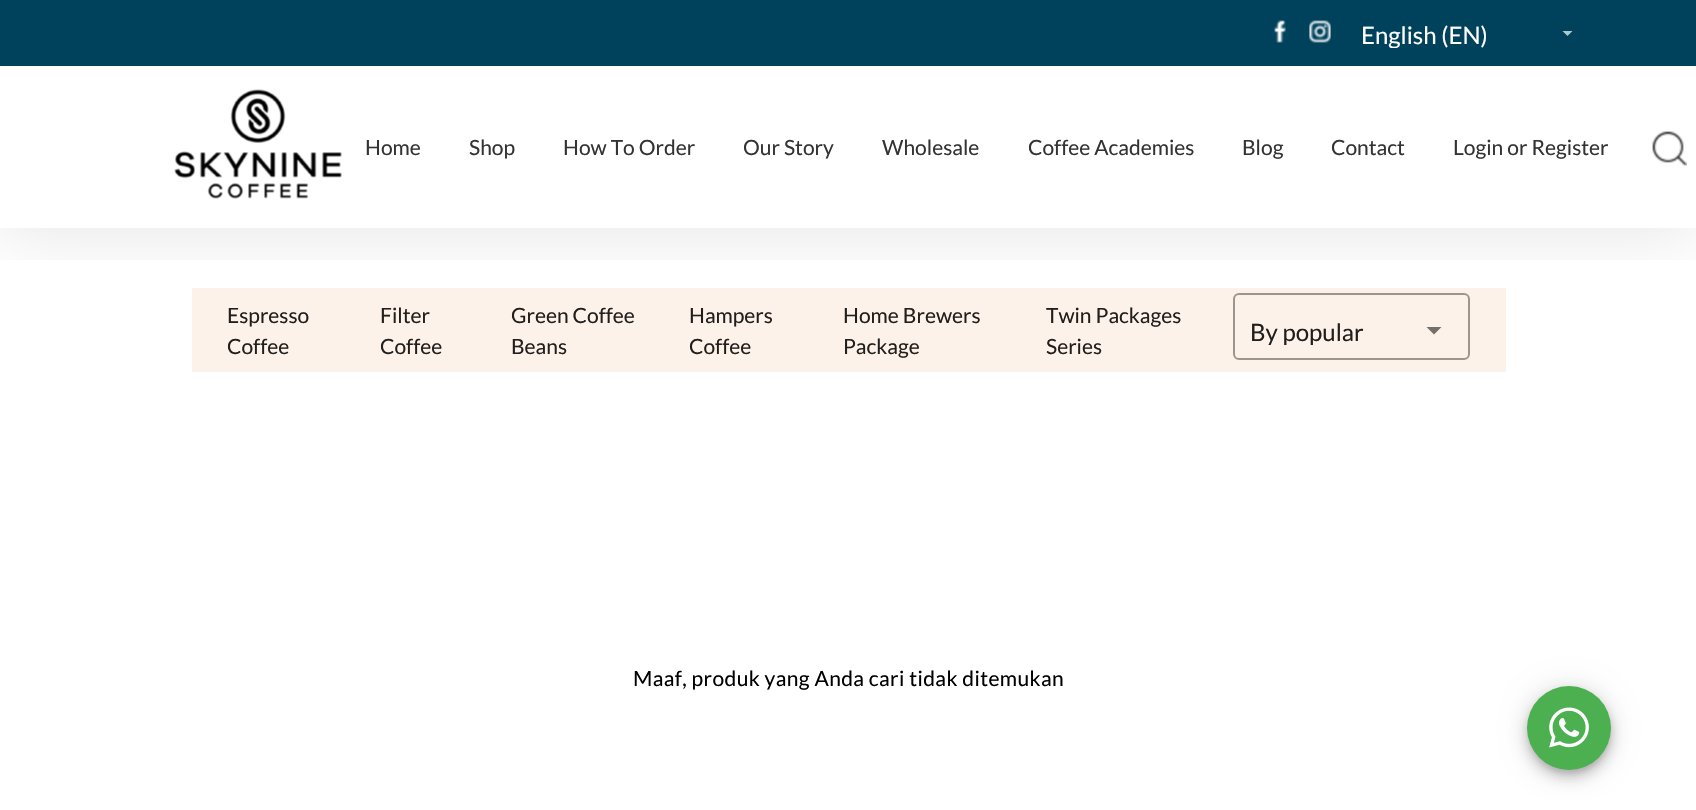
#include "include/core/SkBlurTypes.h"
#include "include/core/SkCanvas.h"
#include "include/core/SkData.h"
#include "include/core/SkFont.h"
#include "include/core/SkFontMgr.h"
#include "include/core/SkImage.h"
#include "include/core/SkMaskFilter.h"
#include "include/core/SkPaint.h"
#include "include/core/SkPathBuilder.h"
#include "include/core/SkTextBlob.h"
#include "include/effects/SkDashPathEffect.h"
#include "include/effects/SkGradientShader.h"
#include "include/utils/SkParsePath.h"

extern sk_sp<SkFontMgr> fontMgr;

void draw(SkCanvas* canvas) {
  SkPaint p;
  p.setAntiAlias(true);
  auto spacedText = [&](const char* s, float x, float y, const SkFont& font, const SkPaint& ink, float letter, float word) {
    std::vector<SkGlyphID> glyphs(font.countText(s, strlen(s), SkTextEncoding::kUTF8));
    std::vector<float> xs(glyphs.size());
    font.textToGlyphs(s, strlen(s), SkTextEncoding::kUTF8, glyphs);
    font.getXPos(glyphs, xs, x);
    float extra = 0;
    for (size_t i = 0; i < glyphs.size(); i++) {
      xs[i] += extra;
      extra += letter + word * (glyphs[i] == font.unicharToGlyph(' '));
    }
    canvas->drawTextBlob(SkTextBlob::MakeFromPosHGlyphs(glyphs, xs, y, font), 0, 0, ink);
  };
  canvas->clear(SK_ColorWHITE);
  canvas->save();
  canvas->clipRect(SkRect::MakeLTRB(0, 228, 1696, 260));
  p.setColor(SkColorSetARGB(26, 0, 0, 0));
  p.setMaskFilter(SkMaskFilter::MakeBlur(kNormal_SkBlurStyle, 34));
  canvas->drawRect(SkRect::MakeLTRB(0, 3, 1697, 231), p);
  p.setMaskFilter(nullptr);
  canvas->restore();
  p.setColor(SkColorSetRGB(0, 66, 92));
  canvas->drawRect(SkRect::MakeLTRB(0, 0, 1696, 66), p);
  canvas->drawImageRect(SkImages::DeferredFromEncodedData(SkData::MakeFromFileName("images/1.png")), SkRect::MakeLTRB(1274, 20, 1286, 43), SkSamplingOptions());
  canvas->drawImageRect(SkImages::DeferredFromEncodedData(SkData::MakeFromFileName("images/2.png")), SkRect::MakeLTRB(1309, 20, 1331, 43), SkSamplingOptions());
  p.setColor(SkColorSetRGB(179, 198, 206));
  canvas->drawPath(SkPathBuilder().moveTo(1562.5f, 31).lineTo(1567.5f, 36).lineTo(1572.5f, 31).close().detach(), p);
  canvas->drawImageRect(SkImages::DeferredFromEncodedData(SkData::MakeFromFileName("images/3.png")), SkRect::MakeLTRB(174, 89, 342, 199), SkSamplingOptions());
  canvas->drawImageRect(SkImages::DeferredFromEncodedData(SkData::MakeFromFileName("images/4.png")), SkRect::MakeLTRB(1652, 131, 1687, 166), SkSamplingOptions());
  p.setColor(SkColorSetRGB(253, 242, 233));
  canvas->drawRect(SkRect::MakeLTRB(192, 288, 1506, 372), p);
  p.setStyle(SkPaint::kStroke_Style);
  p.setStrokeWidth(2);
  p.setColor(SkColorSetRGB(157, 150, 144));
  canvas->drawRoundRect(SkRect::MakeLTRB(1234, 294, 1469, 359), 5, 5, p);
  p.setStyle(SkPaint::kFill_Style);
  p.setColor(SkColorSetRGB(116, 111, 107));
  canvas->drawPath(SkPathBuilder().moveTo(1426.5f, 327).lineTo(1434, 334.5f).lineTo(1441.5f, 327).close().detach(), p);
  p.setColor(SkColorSetARGB(31, 0, 0, 0));
  p.setMaskFilter(SkMaskFilter::MakeBlur(kNormal_SkBlurStyle, 13.5f));
  canvas->drawRoundRect(SkRect::MakeLTRB(1527, 687, 1611, 771), 42, 42, p);
  p.setMaskFilter(nullptr);
  p.setColor(SkColorSetARGB(36, 0, 0, 0));
  p.setMaskFilter(SkMaskFilter::MakeBlur(kNormal_SkBlurStyle, 7.5f));
  canvas->drawRoundRect(SkRect::MakeLTRB(1527, 695, 1611, 779), 42, 42, p);
  p.setMaskFilter(nullptr);
  p.setColor(SkColorSetARGB(51, 0, 0, 0));
  p.setMaskFilter(SkMaskFilter::MakeBlur(kNormal_SkBlurStyle, 4));
  canvas->drawRoundRect(SkRect::MakeLTRB(1529, 692, 1610, 773), 40.5f, 40.5f, p);
  p.setMaskFilter(nullptr);
  p.setColor(SkColorSetRGB(76, 175, 80));
  canvas->drawCircle(1569, 728, 42, p);
  canvas->drawImageRect(SkImages::DeferredFromEncodedData(SkData::MakeFromFileName("images/5.png")), SkRect::MakeLTRB(1549, 707, 1589, 748), SkSamplingOptions());
  canvas->save();
  canvas->clipRect(SkRect::MakeLTRB(1361, 21, 1487, 48));
  SkFont font1(fontMgr->matchFamilyStyle("Lato", SkFontStyle::Normal()), 24);
  font1.setSubpixel(true);
  p.setColor(SK_ColorWHITE);
  canvas->drawString("English (EN)", 1361, 44, font1, p);
  canvas->restore();
  SkFont font2(fontMgr->matchFamilyStyle("Lato", SkFontStyle::Normal()), 21);
  font2.setSubpixel(true);
  p.setColor(SkColorSetRGB(51, 51, 51));
  canvas->drawString("Home", 365, 155, font2, p);
  canvas->drawString("Shop", 469, 155, font2, p);
  canvas->drawString("How To Order", 563, 155, font2, p);
  canvas->drawString("Our Story", 743, 155, font2, p);
  canvas->drawString("Wholesale", 882, 155, font2, p);
  canvas->drawString("Coffee Academies", 1028, 155, font2, p);
  canvas->drawString("Blog", 1242, 155, font2, p);
  canvas->drawString("Contact", 1331, 155, font2, p);
  canvas->drawString("Login or Register", 1453, 155, font2, p);
  p.setColor(SkColorSetRGB(33, 31, 30));
  canvas->drawString("Espresso", 227, 323, font2, p);
  canvas->drawString("Coffee", 227, 354, font2, p);
  canvas->drawString("Filter", 380, 323, font2, p);
  canvas->drawString("Coffee", 380, 354, font2, p);
  canvas->drawString("Green Coffee", 511, 323, font2, p);
  canvas->drawString("Beans", 511, 354, font2, p);
  canvas->drawString("Hampers", 689, 323, font2, p);
  canvas->drawString("Coffee", 689, 354, font2, p);
  canvas->drawString("Home Brewers", 843, 323, font2, p);
  canvas->drawString("Package", 843, 354, font2, p);
  canvas->drawString("Twin Packages", 1046, 323, font2, p);
  canvas->drawString("Series", 1046, 354, font2, p);
  canvas->save();
  canvas->clipRect(SkRect::MakeLTRB(1251, 318, 1364, 345));
  canvas->drawString("By popular", 1250, 341, font1, p);
  canvas->restore();
  p.setColor(SK_ColorBLACK);
  spacedText("Maaf, produk yang Anda cari tidak ditemukan", 633, 686, font2, p, 0.4f, 0);
}
